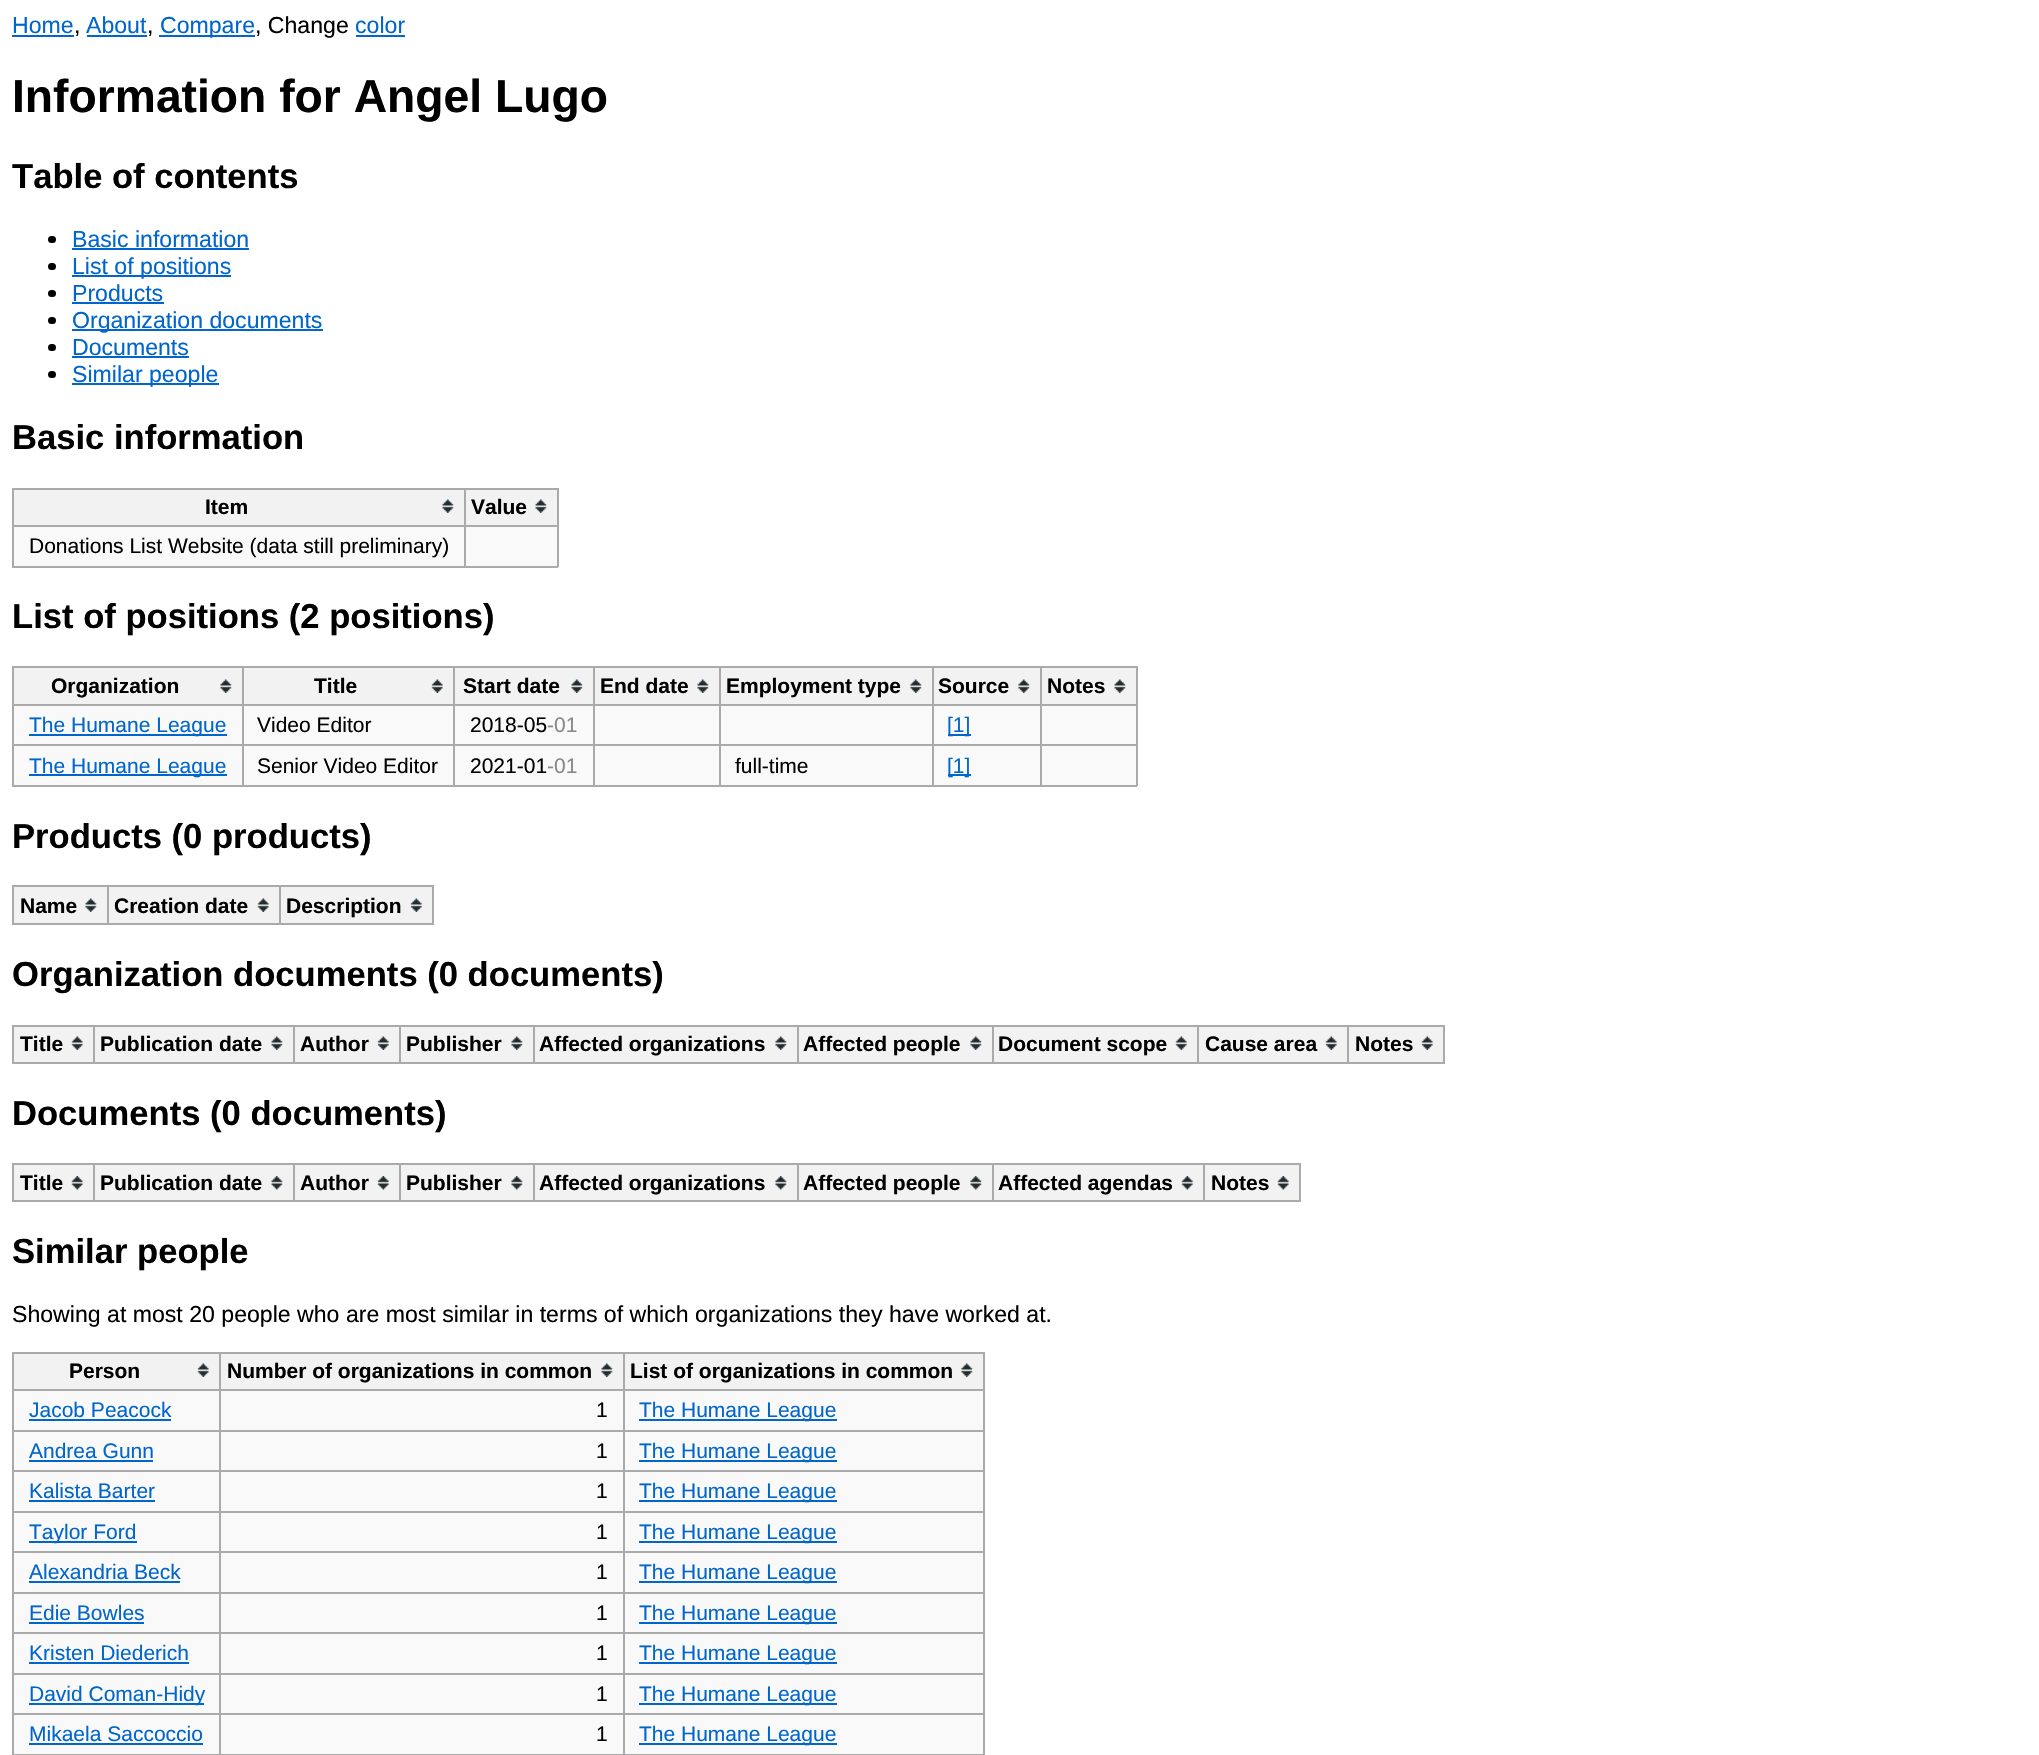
#include "include/core/SkBlurTypes.h"
#include "include/core/SkCanvas.h"
#include "include/core/SkData.h"
#include "include/core/SkFont.h"
#include "include/core/SkFontMgr.h"
#include "include/core/SkImage.h"
#include "include/core/SkMaskFilter.h"
#include "include/core/SkPaint.h"
#include "include/core/SkPathBuilder.h"
#include "include/core/SkTextBlob.h"
#include "include/effects/SkDashPathEffect.h"
#include "include/effects/SkGradientShader.h"
#include "include/utils/SkParsePath.h"

extern sk_sp<SkFontMgr> fontMgr;

void draw(SkCanvas* canvas) {
  SkPaint p;
  p.setAntiAlias(true);
  canvas->clear(SK_ColorWHITE);
  p.setColor(SkColorSetRGB(0, 102, 204));
  canvas->drawRect(SkRect::MakeLTRB(12, 35, 74, 37), p);
  canvas->drawRect(SkRect::MakeLTRB(87, 35, 147, 37), p);
  canvas->drawRect(SkRect::MakeLTRB(159, 35, 255, 37), p);
  canvas->drawRect(SkRect::MakeLTRB(356, 35, 405, 37), p);
  p.setColor(SK_ColorBLACK);
  canvas->drawRoundRect(SkRect::MakeLTRB(48, 236, 56, 243), 3.5f, 3.5f, p);
  p.setColor(SkColorSetRGB(0, 102, 204));
  canvas->drawRect(SkRect::MakeLTRB(72, 248, 249, 250), p);
  p.setColor(SK_ColorBLACK);
  canvas->drawRoundRect(SkRect::MakeLTRB(48, 263, 56, 270), 3.5f, 3.5f, p);
  p.setColor(SkColorSetRGB(0, 102, 204));
  canvas->drawRect(SkRect::MakeLTRB(72, 275, 231, 277), p);
  p.setColor(SK_ColorBLACK);
  canvas->drawRoundRect(SkRect::MakeLTRB(48, 290, 56, 297), 3.5f, 3.5f, p);
  p.setColor(SkColorSetRGB(0, 102, 204));
  canvas->drawRect(SkRect::MakeLTRB(72, 302, 164, 304), p);
  p.setColor(SK_ColorBLACK);
  canvas->drawRoundRect(SkRect::MakeLTRB(48, 317, 56, 324), 3.5f, 3.5f, p);
  p.setColor(SkColorSetRGB(0, 102, 204));
  canvas->drawRect(SkRect::MakeLTRB(72, 329, 323, 331), p);
  p.setColor(SK_ColorBLACK);
  canvas->drawRoundRect(SkRect::MakeLTRB(48, 344, 56, 351), 3.5f, 3.5f, p);
  p.setColor(SkColorSetRGB(0, 102, 204));
  canvas->drawRect(SkRect::MakeLTRB(72, 356, 189, 358), p);
  p.setColor(SK_ColorBLACK);
  canvas->drawRoundRect(SkRect::MakeLTRB(48, 371, 56, 378), 3.5f, 3.5f, p);
  p.setColor(SkColorSetRGB(0, 102, 204));
  canvas->drawRect(SkRect::MakeLTRB(72, 383, 219, 385), p);
  p.setColor(SkColorSetRGB(249, 249, 249));
  canvas->drawRect(SkRect::MakeLTRB(14, 527, 557, 566), p);
  p.setColor(SkColorSetRGB(242, 242, 242));
  canvas->drawRect(SkRect::MakeLTRB(14, 490, 464, 525), p);
  canvas->drawImageRect(SkImages::DeferredFromEncodedData(SkData::MakeFromFileName("images/1.png")), SkRect::MakeLTRB(442, 499, 454, 513), SkSamplingOptions());
  p.setColor(SkColorSetRGB(170, 170, 170));
  canvas->drawRect(SkRect::MakeLTRB(464, 488, 558, 490), p);
  canvas->drawRect(SkRect::MakeLTRB(464, 525, 558, 527), p);
  canvas->drawRect(SkRect::MakeLTRB(557, 525, 559, 567), p);
  canvas->drawRect(SkRect::MakeLTRB(464, 566, 558, 568), p);
  canvas->drawRect(SkRect::MakeLTRB(464, 525, 466, 567), p);
  canvas->drawRect(SkRect::MakeLTRB(12, 525, 465, 527), p);
  canvas->drawRect(SkRect::MakeLTRB(464, 488, 466, 527), p);
  canvas->drawRect(SkRect::MakeLTRB(12, 488, 465, 490), p);
  canvas->drawRect(SkRect::MakeLTRB(12, 566, 465, 568), p);
  canvas->drawRect(SkRect::MakeLTRB(12, 525, 14, 567), p);
  canvas->drawRect(SkRect::MakeLTRB(12, 488, 14, 527), p);
  p.setColor(SkColorSetRGB(242, 242, 242));
  canvas->drawRect(SkRect::MakeLTRB(466, 490, 557, 525), p);
  canvas->drawImageRect(SkImages::DeferredFromEncodedData(SkData::MakeFromFileName("images/2.png")), SkRect::MakeLTRB(535, 499, 547, 513), SkSamplingOptions());
  p.setColor(SkColorSetRGB(170, 170, 170));
  canvas->drawRect(SkRect::MakeLTRB(557, 488, 559, 527), p);
  p.setColor(SkColorSetRGB(249, 249, 249));
  canvas->drawRect(SkRect::MakeLTRB(14, 706, 1136, 785), p);
  p.setColor(SkColorSetRGB(242, 242, 242));
  canvas->drawRect(SkRect::MakeLTRB(14, 668, 242, 704), p);
  canvas->drawImageRect(SkImages::DeferredFromEncodedData(SkData::MakeFromFileName("images/3.png")), SkRect::MakeLTRB(220, 679, 232, 693), SkSamplingOptions());
  p.setColor(SkColorSetRGB(170, 170, 170));
  canvas->drawRect(SkRect::MakeLTRB(1040, 666, 1137, 668), p);
  canvas->drawRect(SkRect::MakeLTRB(1040, 704, 1137, 706), p);
  canvas->drawRect(SkRect::MakeLTRB(1040, 744, 1137, 746), p);
  canvas->drawRect(SkRect::MakeLTRB(1136, 744, 1138, 786), p);
  canvas->drawRect(SkRect::MakeLTRB(1040, 785, 1137, 787), p);
  canvas->drawRect(SkRect::MakeLTRB(1040, 744, 1042, 786), p);
  canvas->drawRect(SkRect::MakeLTRB(932, 744, 1041, 746), p);
  canvas->drawRect(SkRect::MakeLTRB(1040, 704, 1042, 746), p);
  canvas->drawRect(SkRect::MakeLTRB(932, 704, 1041, 706), p);
  canvas->drawRect(SkRect::MakeLTRB(1040, 666, 1042, 705), p);
  canvas->drawRect(SkRect::MakeLTRB(932, 666, 1041, 668), p);
  canvas->drawRect(SkRect::MakeLTRB(932, 785, 1041, 787), p);
  canvas->drawRect(SkRect::MakeLTRB(932, 744, 934, 786), p);
  canvas->drawRect(SkRect::MakeLTRB(719, 744, 933, 746), p);
  canvas->drawRect(SkRect::MakeLTRB(932, 704, 934, 746), p);
  canvas->drawRect(SkRect::MakeLTRB(719, 704, 933, 706), p);
  canvas->drawRect(SkRect::MakeLTRB(932, 666, 934, 705), p);
  canvas->drawRect(SkRect::MakeLTRB(719, 666, 933, 668), p);
  canvas->drawRect(SkRect::MakeLTRB(719, 785, 933, 787), p);
  canvas->drawRect(SkRect::MakeLTRB(719, 744, 721, 786), p);
  canvas->drawRect(SkRect::MakeLTRB(593, 744, 720, 746), p);
  canvas->drawRect(SkRect::MakeLTRB(719, 704, 721, 746), p);
  canvas->drawRect(SkRect::MakeLTRB(593, 704, 720, 706), p);
  canvas->drawRect(SkRect::MakeLTRB(719, 666, 721, 705), p);
  canvas->drawRect(SkRect::MakeLTRB(593, 666, 720, 668), p);
  canvas->drawRect(SkRect::MakeLTRB(593, 785, 720, 787), p);
  canvas->drawRect(SkRect::MakeLTRB(593, 744, 595, 786), p);
  canvas->drawRect(SkRect::MakeLTRB(453, 744, 594, 746), p);
  canvas->drawRect(SkRect::MakeLTRB(593, 704, 595, 746), p);
  canvas->drawRect(SkRect::MakeLTRB(453, 704, 594, 706), p);
  canvas->drawRect(SkRect::MakeLTRB(593, 666, 595, 705), p);
  canvas->drawRect(SkRect::MakeLTRB(453, 666, 594, 668), p);
  canvas->drawRect(SkRect::MakeLTRB(453, 785, 594, 787), p);
  canvas->drawRect(SkRect::MakeLTRB(453, 744, 455, 786), p);
  canvas->drawRect(SkRect::MakeLTRB(242, 744, 455, 746), p);
  canvas->drawRect(SkRect::MakeLTRB(453, 704, 455, 746), p);
  canvas->drawRect(SkRect::MakeLTRB(242, 704, 455, 706), p);
  canvas->drawRect(SkRect::MakeLTRB(453, 666, 455, 705), p);
  canvas->drawRect(SkRect::MakeLTRB(242, 666, 455, 668), p);
  canvas->drawRect(SkRect::MakeLTRB(242, 785, 455, 787), p);
  canvas->drawRect(SkRect::MakeLTRB(242, 744, 244, 786), p);
  canvas->drawRect(SkRect::MakeLTRB(12, 744, 243, 746), p);
  canvas->drawRect(SkRect::MakeLTRB(242, 704, 244, 746), p);
  canvas->drawRect(SkRect::MakeLTRB(12, 704, 243, 706), p);
  canvas->drawRect(SkRect::MakeLTRB(242, 666, 244, 705), p);
  canvas->drawRect(SkRect::MakeLTRB(12, 666, 243, 668), p);
  canvas->drawRect(SkRect::MakeLTRB(12, 785, 243, 787), p);
  canvas->drawRect(SkRect::MakeLTRB(12, 744, 14, 786), p);
  canvas->drawRect(SkRect::MakeLTRB(12, 704, 14, 746), p);
  canvas->drawRect(SkRect::MakeLTRB(12, 666, 14, 705), p);
  p.setColor(SkColorSetRGB(242, 242, 242));
  canvas->drawRect(SkRect::MakeLTRB(244, 668, 453, 704), p);
  canvas->drawImageRect(SkImages::DeferredFromEncodedData(SkData::MakeFromFileName("images/4.png")), SkRect::MakeLTRB(431, 679, 443, 693), SkSamplingOptions());
  canvas->drawRect(SkRect::MakeLTRB(455, 668, 593, 704), p);
  canvas->drawImageRect(SkImages::DeferredFromEncodedData(SkData::MakeFromFileName("images/1.png")), SkRect::MakeLTRB(571, 679, 583, 693), SkSamplingOptions());
  canvas->drawRect(SkRect::MakeLTRB(595, 668, 719, 704), p);
  canvas->drawImageRect(SkImages::DeferredFromEncodedData(SkData::MakeFromFileName("images/3.png")), SkRect::MakeLTRB(697, 679, 709, 693), SkSamplingOptions());
  canvas->drawRect(SkRect::MakeLTRB(721, 668, 932, 704), p);
  canvas->drawImageRect(SkImages::DeferredFromEncodedData(SkData::MakeFromFileName("images/3.png")), SkRect::MakeLTRB(910, 679, 922, 693), SkSamplingOptions());
  canvas->drawRect(SkRect::MakeLTRB(934, 668, 1040, 704), p);
  canvas->drawImageRect(SkImages::DeferredFromEncodedData(SkData::MakeFromFileName("images/3.png")), SkRect::MakeLTRB(1018, 679, 1030, 693), SkSamplingOptions());
  canvas->drawRect(SkRect::MakeLTRB(1042, 668, 1136, 704), p);
  canvas->drawImageRect(SkImages::DeferredFromEncodedData(SkData::MakeFromFileName("images/1.png")), SkRect::MakeLTRB(1114, 679, 1126, 693), SkSamplingOptions());
  p.setColor(SkColorSetRGB(170, 170, 170));
  canvas->drawRect(SkRect::MakeLTRB(1136, 704, 1138, 746), p);
  canvas->drawRect(SkRect::MakeLTRB(1136, 666, 1138, 705), p);
  p.setColor(SkColorSetRGB(0, 102, 204));
  canvas->drawRect(SkRect::MakeLTRB(29, 734, 227, 736), p);
  canvas->drawRect(SkRect::MakeLTRB(948, 734, 971, 736), p);
  canvas->drawRect(SkRect::MakeLTRB(29, 774, 227, 776), p);
  canvas->drawRect(SkRect::MakeLTRB(948, 774, 971, 776), p);
  p.setColor(SkColorSetRGB(242, 242, 242));
  canvas->drawRect(SkRect::MakeLTRB(14, 887, 107, 923), p);
  canvas->drawImageRect(SkImages::DeferredFromEncodedData(SkData::MakeFromFileName("images/3.png")), SkRect::MakeLTRB(85, 898, 97, 912), SkSamplingOptions());
  p.setColor(SkColorSetRGB(170, 170, 170));
  canvas->drawRect(SkRect::MakeLTRB(279, 885, 434, 887), p);
  canvas->drawRect(SkRect::MakeLTRB(432, 885, 434, 924), p);
  canvas->drawRect(SkRect::MakeLTRB(279, 923, 434, 925), p);
  canvas->drawRect(SkRect::MakeLTRB(279, 885, 281, 924), p);
  canvas->drawRect(SkRect::MakeLTRB(107, 885, 281, 887), p);
  canvas->drawRect(SkRect::MakeLTRB(107, 923, 281, 925), p);
  canvas->drawRect(SkRect::MakeLTRB(107, 885, 109, 924), p);
  canvas->drawRect(SkRect::MakeLTRB(12, 885, 108, 887), p);
  canvas->drawRect(SkRect::MakeLTRB(12, 923, 108, 925), p);
  canvas->drawRect(SkRect::MakeLTRB(12, 885, 14, 924), p);
  p.setColor(SkColorSetRGB(242, 242, 242));
  canvas->drawRect(SkRect::MakeLTRB(109, 887, 279, 923), p);
  canvas->drawImageRect(SkImages::DeferredFromEncodedData(SkData::MakeFromFileName("images/5.png")), SkRect::MakeLTRB(257, 898, 269, 912), SkSamplingOptions());
  canvas->drawRect(SkRect::MakeLTRB(281, 887, 432, 923), p);
  canvas->drawImageRect(SkImages::DeferredFromEncodedData(SkData::MakeFromFileName("images/4.png")), SkRect::MakeLTRB(410, 898, 422, 912), SkSamplingOptions());
  canvas->drawRect(SkRect::MakeLTRB(14, 1027, 93, 1062), p);
  canvas->drawImageRect(SkImages::DeferredFromEncodedData(SkData::MakeFromFileName("images/5.png")), SkRect::MakeLTRB(71, 1036, 83, 1050), SkSamplingOptions());
  p.setColor(SkColorSetRGB(170, 170, 170));
  canvas->drawRect(SkRect::MakeLTRB(1347, 1025, 1445, 1027), p);
  canvas->drawRect(SkRect::MakeLTRB(1443, 1025, 1445, 1064), p);
  canvas->drawRect(SkRect::MakeLTRB(1347, 1062, 1445, 1064), p);
  canvas->drawRect(SkRect::MakeLTRB(1347, 1025, 1349, 1064), p);
  canvas->drawRect(SkRect::MakeLTRB(1197, 1025, 1349, 1027), p);
  canvas->drawRect(SkRect::MakeLTRB(1197, 1062, 1349, 1064), p);
  canvas->drawRect(SkRect::MakeLTRB(1197, 1025, 1199, 1064), p);
  canvas->drawRect(SkRect::MakeLTRB(992, 1025, 1199, 1027), p);
  canvas->drawRect(SkRect::MakeLTRB(992, 1062, 1199, 1064), p);
  canvas->drawRect(SkRect::MakeLTRB(992, 1025, 994, 1064), p);
  canvas->drawRect(SkRect::MakeLTRB(797, 1025, 993, 1027), p);
  canvas->drawRect(SkRect::MakeLTRB(797, 1062, 993, 1064), p);
  canvas->drawRect(SkRect::MakeLTRB(797, 1025, 799, 1064), p);
  canvas->drawRect(SkRect::MakeLTRB(533, 1025, 798, 1027), p);
  canvas->drawRect(SkRect::MakeLTRB(533, 1062, 798, 1064), p);
  canvas->drawRect(SkRect::MakeLTRB(533, 1025, 535, 1064), p);
  canvas->drawRect(SkRect::MakeLTRB(399, 1025, 534, 1027), p);
  canvas->drawRect(SkRect::MakeLTRB(399, 1062, 534, 1064), p);
  canvas->drawRect(SkRect::MakeLTRB(399, 1025, 401, 1064), p);
  canvas->drawRect(SkRect::MakeLTRB(293, 1025, 401, 1027), p);
  canvas->drawRect(SkRect::MakeLTRB(293, 1062, 401, 1064), p);
  canvas->drawRect(SkRect::MakeLTRB(293, 1025, 295, 1064), p);
  canvas->drawRect(SkRect::MakeLTRB(93, 1025, 294, 1027), p);
  canvas->drawRect(SkRect::MakeLTRB(93, 1062, 294, 1064), p);
  canvas->drawRect(SkRect::MakeLTRB(93, 1025, 95, 1064), p);
  canvas->drawRect(SkRect::MakeLTRB(12, 1025, 95, 1027), p);
  canvas->drawRect(SkRect::MakeLTRB(12, 1062, 95, 1064), p);
  canvas->drawRect(SkRect::MakeLTRB(12, 1025, 14, 1064), p);
  p.setColor(SkColorSetRGB(242, 242, 242));
  canvas->drawRect(SkRect::MakeLTRB(95, 1027, 293, 1062), p);
  canvas->drawImageRect(SkImages::DeferredFromEncodedData(SkData::MakeFromFileName("images/2.png")), SkRect::MakeLTRB(271, 1036, 283, 1050), SkSamplingOptions());
  canvas->drawRect(SkRect::MakeLTRB(295, 1027, 399, 1062), p);
  canvas->drawImageRect(SkImages::DeferredFromEncodedData(SkData::MakeFromFileName("images/4.png")), SkRect::MakeLTRB(377, 1036, 389, 1050), SkSamplingOptions());
  canvas->drawRect(SkRect::MakeLTRB(401, 1027, 533, 1062), p);
  canvas->drawImageRect(SkImages::DeferredFromEncodedData(SkData::MakeFromFileName("images/3.png")), SkRect::MakeLTRB(511, 1036, 523, 1050), SkSamplingOptions());
  canvas->drawRect(SkRect::MakeLTRB(535, 1027, 797, 1062), p);
  canvas->drawImageRect(SkImages::DeferredFromEncodedData(SkData::MakeFromFileName("images/3.png")), SkRect::MakeLTRB(775, 1036, 787, 1050), SkSamplingOptions());
  canvas->drawRect(SkRect::MakeLTRB(799, 1027, 992, 1062), p);
  canvas->drawImageRect(SkImages::DeferredFromEncodedData(SkData::MakeFromFileName("images/3.png")), SkRect::MakeLTRB(970, 1036, 982, 1050), SkSamplingOptions());
  canvas->drawRect(SkRect::MakeLTRB(994, 1027, 1197, 1062), p);
  canvas->drawImageRect(SkImages::DeferredFromEncodedData(SkData::MakeFromFileName("images/4.png")), SkRect::MakeLTRB(1175, 1036, 1187, 1050), SkSamplingOptions());
  canvas->drawRect(SkRect::MakeLTRB(1199, 1027, 1347, 1062), p);
  canvas->drawImageRect(SkImages::DeferredFromEncodedData(SkData::MakeFromFileName("images/4.png")), SkRect::MakeLTRB(1325, 1036, 1337, 1050), SkSamplingOptions());
  canvas->drawRect(SkRect::MakeLTRB(1349, 1027, 1443, 1062), p);
  canvas->drawImageRect(SkImages::DeferredFromEncodedData(SkData::MakeFromFileName("images/4.png")), SkRect::MakeLTRB(1421, 1036, 1433, 1050), SkSamplingOptions());
  canvas->drawRect(SkRect::MakeLTRB(14, 1165, 93, 1200), p);
  canvas->drawImageRect(SkImages::DeferredFromEncodedData(SkData::MakeFromFileName("images/6.png")), SkRect::MakeLTRB(71, 1176, 83, 1190), SkSamplingOptions());
  p.setColor(SkColorSetRGB(170, 170, 170));
  canvas->drawRect(SkRect::MakeLTRB(1203, 1163, 1301, 1165), p);
  canvas->drawRect(SkRect::MakeLTRB(1299, 1163, 1301, 1202), p);
  canvas->drawRect(SkRect::MakeLTRB(1203, 1200, 1301, 1202), p);
  canvas->drawRect(SkRect::MakeLTRB(1203, 1163, 1205, 1202), p);
  canvas->drawRect(SkRect::MakeLTRB(992, 1163, 1205, 1165), p);
  canvas->drawRect(SkRect::MakeLTRB(992, 1200, 1205, 1202), p);
  canvas->drawRect(SkRect::MakeLTRB(992, 1163, 994, 1202), p);
  canvas->drawRect(SkRect::MakeLTRB(797, 1163, 993, 1165), p);
  canvas->drawRect(SkRect::MakeLTRB(797, 1200, 993, 1202), p);
  canvas->drawRect(SkRect::MakeLTRB(797, 1163, 799, 1202), p);
  canvas->drawRect(SkRect::MakeLTRB(533, 1163, 798, 1165), p);
  canvas->drawRect(SkRect::MakeLTRB(533, 1200, 798, 1202), p);
  canvas->drawRect(SkRect::MakeLTRB(533, 1163, 535, 1202), p);
  canvas->drawRect(SkRect::MakeLTRB(399, 1163, 534, 1165), p);
  canvas->drawRect(SkRect::MakeLTRB(399, 1200, 534, 1202), p);
  canvas->drawRect(SkRect::MakeLTRB(399, 1163, 401, 1202), p);
  canvas->drawRect(SkRect::MakeLTRB(293, 1163, 401, 1165), p);
  canvas->drawRect(SkRect::MakeLTRB(293, 1200, 401, 1202), p);
  canvas->drawRect(SkRect::MakeLTRB(293, 1163, 295, 1202), p);
  canvas->drawRect(SkRect::MakeLTRB(93, 1163, 294, 1165), p);
  canvas->drawRect(SkRect::MakeLTRB(93, 1200, 294, 1202), p);
  canvas->drawRect(SkRect::MakeLTRB(93, 1163, 95, 1202), p);
  canvas->drawRect(SkRect::MakeLTRB(12, 1163, 95, 1165), p);
  canvas->drawRect(SkRect::MakeLTRB(12, 1200, 95, 1202), p);
  canvas->drawRect(SkRect::MakeLTRB(12, 1163, 14, 1202), p);
  p.setColor(SkColorSetRGB(242, 242, 242));
  canvas->drawRect(SkRect::MakeLTRB(95, 1165, 293, 1200), p);
  canvas->drawImageRect(SkImages::DeferredFromEncodedData(SkData::MakeFromFileName("images/7.png")), SkRect::MakeLTRB(271, 1176, 283, 1190), SkSamplingOptions());
  canvas->drawRect(SkRect::MakeLTRB(295, 1165, 399, 1200), p);
  canvas->drawImageRect(SkImages::DeferredFromEncodedData(SkData::MakeFromFileName("images/8.png")), SkRect::MakeLTRB(377, 1176, 389, 1190), SkSamplingOptions());
  canvas->drawRect(SkRect::MakeLTRB(401, 1165, 533, 1200), p);
  canvas->drawImageRect(SkImages::DeferredFromEncodedData(SkData::MakeFromFileName("images/9.png")), SkRect::MakeLTRB(511, 1176, 523, 1190), SkSamplingOptions());
  canvas->drawRect(SkRect::MakeLTRB(535, 1165, 797, 1200), p);
  canvas->drawImageRect(SkImages::DeferredFromEncodedData(SkData::MakeFromFileName("images/9.png")), SkRect::MakeLTRB(775, 1176, 787, 1190), SkSamplingOptions());
  canvas->drawRect(SkRect::MakeLTRB(799, 1165, 992, 1200), p);
  canvas->drawImageRect(SkImages::DeferredFromEncodedData(SkData::MakeFromFileName("images/9.png")), SkRect::MakeLTRB(970, 1176, 982, 1190), SkSamplingOptions());
  canvas->drawRect(SkRect::MakeLTRB(994, 1165, 1203, 1200), p);
  canvas->drawImageRect(SkImages::DeferredFromEncodedData(SkData::MakeFromFileName("images/8.png")), SkRect::MakeLTRB(1181, 1176, 1193, 1190), SkSamplingOptions());
  canvas->drawRect(SkRect::MakeLTRB(1205, 1165, 1299, 1200), p);
  canvas->drawImageRect(SkImages::DeferredFromEncodedData(SkData::MakeFromFileName("images/6.png")), SkRect::MakeLTRB(1277, 1176, 1289, 1190), SkSamplingOptions());
  p.setColor(SkColorSetRGB(249, 249, 249));
  canvas->drawRect(SkRect::MakeLTRB(14, 1391, 983, 1754), p);
  p.setColor(SkColorSetRGB(242, 242, 242));
  canvas->drawRect(SkRect::MakeLTRB(14, 1354, 219, 1389), p);
  canvas->drawImageRect(SkImages::DeferredFromEncodedData(SkData::MakeFromFileName("images/5.png")), SkRect::MakeLTRB(197, 1363, 209, 1377), SkSamplingOptions());
  p.setColor(SkColorSetRGB(170, 170, 170));
  canvas->drawRect(SkRect::MakeLTRB(623, 1352, 984, 1354), p);
  canvas->drawRect(SkRect::MakeLTRB(623, 1389, 984, 1391), p);
  canvas->drawRect(SkRect::MakeLTRB(623, 1430, 984, 1432), p);
  canvas->drawRect(SkRect::MakeLTRB(623, 1470, 984, 1472), p);
  canvas->drawRect(SkRect::MakeLTRB(623, 1511, 984, 1513), p);
  canvas->drawRect(SkRect::MakeLTRB(623, 1551, 984, 1553), p);
  canvas->drawRect(SkRect::MakeLTRB(623, 1592, 984, 1594), p);
  canvas->drawRect(SkRect::MakeLTRB(623, 1632, 984, 1634), p);
  canvas->drawRect(SkRect::MakeLTRB(623, 1673, 984, 1675), p);
  canvas->drawRect(SkRect::MakeLTRB(623, 1713, 984, 1715), p);
  canvas->drawRect(SkRect::MakeLTRB(12, 1754, 984, 1755), p);
  canvas->drawRect(SkRect::MakeLTRB(623, 1713, 625, 1755), p);
  canvas->drawRect(SkRect::MakeLTRB(219, 1713, 624, 1715), p);
  canvas->drawRect(SkRect::MakeLTRB(623, 1673, 625, 1715), p);
  canvas->drawRect(SkRect::MakeLTRB(219, 1673, 624, 1675), p);
  canvas->drawRect(SkRect::MakeLTRB(623, 1632, 625, 1674), p);
  canvas->drawRect(SkRect::MakeLTRB(219, 1632, 624, 1634), p);
  canvas->drawRect(SkRect::MakeLTRB(623, 1592, 625, 1634), p);
  canvas->drawRect(SkRect::MakeLTRB(219, 1592, 624, 1594), p);
  canvas->drawRect(SkRect::MakeLTRB(623, 1551, 625, 1593), p);
  canvas->drawRect(SkRect::MakeLTRB(219, 1551, 624, 1553), p);
  canvas->drawRect(SkRect::MakeLTRB(623, 1511, 625, 1553), p);
  canvas->drawRect(SkRect::MakeLTRB(219, 1511, 624, 1513), p);
  canvas->drawRect(SkRect::MakeLTRB(623, 1470, 625, 1512), p);
  canvas->drawRect(SkRect::MakeLTRB(219, 1470, 624, 1472), p);
  canvas->drawRect(SkRect::MakeLTRB(623, 1430, 625, 1472), p);
  canvas->drawRect(SkRect::MakeLTRB(219, 1430, 624, 1432), p);
  canvas->drawRect(SkRect::MakeLTRB(623, 1389, 625, 1431), p);
  canvas->drawRect(SkRect::MakeLTRB(219, 1389, 624, 1391), p);
  canvas->drawRect(SkRect::MakeLTRB(623, 1352, 625, 1391), p);
  canvas->drawRect(SkRect::MakeLTRB(219, 1352, 624, 1354), p);
  canvas->drawRect(SkRect::MakeLTRB(219, 1713, 221, 1755), p);
  canvas->drawRect(SkRect::MakeLTRB(12, 1713, 221, 1715), p);
  canvas->drawRect(SkRect::MakeLTRB(219, 1673, 221, 1715), p);
  canvas->drawRect(SkRect::MakeLTRB(12, 1673, 221, 1675), p);
  canvas->drawRect(SkRect::MakeLTRB(219, 1632, 221, 1674), p);
  canvas->drawRect(SkRect::MakeLTRB(12, 1632, 221, 1634), p);
  canvas->drawRect(SkRect::MakeLTRB(219, 1592, 221, 1634), p);
  canvas->drawRect(SkRect::MakeLTRB(12, 1592, 221, 1594), p);
  canvas->drawRect(SkRect::MakeLTRB(219, 1551, 221, 1593), p);
  canvas->drawRect(SkRect::MakeLTRB(12, 1551, 221, 1553), p);
  canvas->drawRect(SkRect::MakeLTRB(219, 1511, 221, 1553), p);
  canvas->drawRect(SkRect::MakeLTRB(12, 1511, 221, 1513), p);
  canvas->drawRect(SkRect::MakeLTRB(219, 1470, 221, 1512), p);
  canvas->drawRect(SkRect::MakeLTRB(12, 1470, 221, 1472), p);
  canvas->drawRect(SkRect::MakeLTRB(219, 1430, 221, 1472), p);
  canvas->drawRect(SkRect::MakeLTRB(12, 1430, 221, 1432), p);
  canvas->drawRect(SkRect::MakeLTRB(219, 1389, 221, 1431), p);
  canvas->drawRect(SkRect::MakeLTRB(12, 1389, 221, 1391), p);
  canvas->drawRect(SkRect::MakeLTRB(219, 1352, 221, 1391), p);
  canvas->drawRect(SkRect::MakeLTRB(12, 1352, 221, 1354), p);
  canvas->drawRect(SkRect::MakeLTRB(12, 1713, 14, 1755), p);
  canvas->drawRect(SkRect::MakeLTRB(12, 1673, 14, 1715), p);
  canvas->drawRect(SkRect::MakeLTRB(12, 1632, 14, 1674), p);
  canvas->drawRect(SkRect::MakeLTRB(12, 1592, 14, 1634), p);
  canvas->drawRect(SkRect::MakeLTRB(12, 1551, 14, 1593), p);
  canvas->drawRect(SkRect::MakeLTRB(12, 1511, 14, 1553), p);
  canvas->drawRect(SkRect::MakeLTRB(12, 1470, 14, 1512), p);
  canvas->drawRect(SkRect::MakeLTRB(12, 1430, 14, 1472), p);
  canvas->drawRect(SkRect::MakeLTRB(12, 1389, 14, 1431), p);
  canvas->drawRect(SkRect::MakeLTRB(12, 1352, 14, 1391), p);
  p.setColor(SkColorSetRGB(242, 242, 242));
  canvas->drawRect(SkRect::MakeLTRB(221, 1354, 623, 1389), p);
  canvas->drawImageRect(SkImages::DeferredFromEncodedData(SkData::MakeFromFileName("images/1.png")), SkRect::MakeLTRB(601, 1363, 613, 1377), SkSamplingOptions());
  canvas->drawRect(SkRect::MakeLTRB(625, 1354, 983, 1389), p);
  canvas->drawImageRect(SkImages::DeferredFromEncodedData(SkData::MakeFromFileName("images/3.png")), SkRect::MakeLTRB(961, 1363, 973, 1377), SkSamplingOptions());
  p.setColor(SkColorSetRGB(170, 170, 170));
  canvas->drawRect(SkRect::MakeLTRB(983, 1713, 985, 1755), p);
  canvas->drawRect(SkRect::MakeLTRB(983, 1673, 985, 1715), p);
  canvas->drawRect(SkRect::MakeLTRB(983, 1632, 985, 1674), p);
  canvas->drawRect(SkRect::MakeLTRB(983, 1592, 985, 1634), p);
  canvas->drawRect(SkRect::MakeLTRB(983, 1551, 985, 1593), p);
  canvas->drawRect(SkRect::MakeLTRB(983, 1511, 985, 1553), p);
  canvas->drawRect(SkRect::MakeLTRB(983, 1470, 985, 1512), p);
  canvas->drawRect(SkRect::MakeLTRB(983, 1430, 985, 1472), p);
  canvas->drawRect(SkRect::MakeLTRB(983, 1389, 985, 1431), p);
  canvas->drawRect(SkRect::MakeLTRB(983, 1352, 985, 1391), p);
  p.setColor(SkColorSetRGB(0, 102, 204));
  canvas->drawRect(SkRect::MakeLTRB(29, 1419, 171, 1421), p);
  canvas->drawRect(SkRect::MakeLTRB(639, 1419, 837, 1421), p);
  canvas->drawRect(SkRect::MakeLTRB(29, 1460, 153, 1462), p);
  canvas->drawRect(SkRect::MakeLTRB(639, 1460, 837, 1462), p);
  canvas->drawRect(SkRect::MakeLTRB(29, 1500, 155, 1502), p);
  canvas->drawRect(SkRect::MakeLTRB(639, 1500, 837, 1502), p);
  canvas->drawRect(SkRect::MakeLTRB(29, 1541, 137, 1543), p);
  canvas->drawRect(SkRect::MakeLTRB(639, 1541, 837, 1543), p);
  canvas->drawRect(SkRect::MakeLTRB(29, 1581, 180, 1583), p);
  canvas->drawRect(SkRect::MakeLTRB(639, 1581, 837, 1583), p);
  canvas->drawRect(SkRect::MakeLTRB(29, 1622, 144, 1624), p);
  canvas->drawRect(SkRect::MakeLTRB(639, 1622, 837, 1624), p);
  canvas->drawRect(SkRect::MakeLTRB(29, 1662, 189, 1664), p);
  canvas->drawRect(SkRect::MakeLTRB(639, 1662, 837, 1664), p);
  canvas->drawRect(SkRect::MakeLTRB(29, 1703, 204, 1705), p);
  canvas->drawRect(SkRect::MakeLTRB(639, 1703, 837, 1705), p);
  canvas->drawRect(SkRect::MakeLTRB(29, 1743, 203, 1745), p);
  canvas->drawRect(SkRect::MakeLTRB(639, 1743, 837, 1745), p);
  SkFont font1(fontMgr->matchFamilyStyle("Liberation Sans", SkFontStyle::Normal()), 23.1f);
  font1.setSubpixel(true);
  canvas->drawString("Home", 12, 33, font1, p);
  p.setColor(SK_ColorBLACK);
  canvas->drawString(",", 74, 33, font1, p);
  p.setColor(SkColorSetRGB(0, 102, 204));
  canvas->drawString("About", 86, 33, font1, p);
  p.setColor(SK_ColorBLACK);
  canvas->drawString(",", 147, 33, font1, p);
  p.setColor(SkColorSetRGB(0, 102, 204));
  canvas->drawString("Compare", 160, 33, font1, p);
  p.setColor(SK_ColorBLACK);
  canvas->drawString(", Change", 255, 33, font1, p);
  p.setColor(SkColorSetRGB(0, 102, 204));
  canvas->drawString("color", 355, 33, font1, p);
  SkFont font2(fontMgr->matchFamilyStyle("Liberation Sans", SkFontStyle::Bold()), 46.25f);
  font2.setSubpixel(true);
  p.setColor(SK_ColorBLACK);
  canvas->drawString("Information for Angel Lugo", 12, 112, font2, p);
  SkFont font3(fontMgr->matchFamilyStyle("Liberation Sans", SkFontStyle::Bold()), 34.6f);
  font3.setSubpixel(true);
  canvas->drawString("Table of contents", 12, 188, font3, p);
  p.setColor(SkColorSetRGB(0, 102, 204));
  canvas->drawString("Basic information", 72, 247, font1, p);
  canvas->drawString("List of positions", 72, 274, font1, p);
  canvas->drawString("Products", 72, 301, font1, p);
  canvas->drawString("Organization documents", 72, 328, font1, p);
  canvas->drawString("Documents", 72, 355, font1, p);
  canvas->drawString("Similar people", 72, 382, font1, p);
  p.setColor(SK_ColorBLACK);
  canvas->drawString("Basic information", 12, 449, font3, p);
  SkFont font4(fontMgr->matchFamilyStyle("Liberation Sans", SkFontStyle::Bold()), 21);
  font4.setSubpixel(true);
  canvas->drawString("Item", 205, 514, font4, p);
  canvas->drawString("Value", 471, 514, font4, p);
  SkFont font5(fontMgr->matchFamilyStyle("Liberation Sans", SkFontStyle::Normal()), 21);
  font5.setSubpixel(true);
  canvas->drawString("Donations List Website (data still preliminary)", 29, 553, font5, p);
  canvas->drawString("List of positions (2 positions)", 12, 628, font3, p);
  canvas->drawString("Organization", 51, 693, font4, p);
  canvas->drawString("Title", 314, 693, font4, p);
  canvas->drawString("Start date", 463, 693, font4, p);
  canvas->drawString("End date", 600, 693, font4, p);
  canvas->drawString("Employment type", 726, 693, font4, p);
  canvas->drawString("Source", 938, 693, font4, p);
  canvas->drawString("Notes", 1047, 693, font4, p);
  p.setColor(SkColorSetRGB(0, 102, 204));
  canvas->drawString("The Humane League", 29, 732, font5, p);
  p.setColor(SK_ColorBLACK);
  canvas->drawString("Video Editor", 257, 732, font5, p);
  canvas->drawString("2018-05", 470, 732, font5, p);
  p.setColor(SkColorSetRGB(136, 136, 136));
  canvas->drawString("-01", 547, 732, font5, p);
  p.setColor(SkColorSetRGB(0, 102, 204));
  canvas->drawString("[1]", 947, 732, font5, p);
  canvas->drawString("The Humane League", 29, 773, font5, p);
  p.setColor(SK_ColorBLACK);
  canvas->drawString("Senior Video Editor", 257, 773, font5, p);
  canvas->drawString("2021-01", 470, 773, font5, p);
  p.setColor(SkColorSetRGB(136, 136, 136));
  canvas->drawString("-01", 547, 773, font5, p);
  p.setColor(SK_ColorBLACK);
  canvas->drawString("full-time", 735, 773, font5, p);
  p.setColor(SkColorSetRGB(0, 102, 204));
  canvas->drawString("[1]", 947, 773, font5, p);
  p.setColor(SK_ColorBLACK);
  canvas->drawString("Products (0 products)", 12, 848, font3, p);
  canvas->drawString("Name", 20, 913, font4, p);
  canvas->drawString("Creation date", 114, 913, font4, p);
  canvas->drawString("Description", 286, 913, font4, p);
  canvas->drawString("Organization documents (0 documents)", 12, 986, font3, p);
  canvas->drawString("Title", 20, 1051, font4, p);
  canvas->drawString("Publication date", 100, 1051, font4, p);
  canvas->drawString("Author", 300, 1051, font4, p);
  canvas->drawString("Publisher", 406, 1051, font4, p);
  canvas->drawString("Affected organizations", 539, 1051, font4, p);
  canvas->drawString("Affected people", 803, 1051, font4, p);
  canvas->drawString("Document scope", 998, 1051, font4, p);
  canvas->drawString("Cause area", 1205, 1051, font4, p);
  canvas->drawString("Notes", 1355, 1051, font4, p);
  canvas->drawString("Documents (0 documents)", 12, 1125, font3, p);
  canvas->drawString("Title", 20, 1190, font4, p);
  canvas->drawString("Publication date", 100, 1190, font4, p);
  canvas->drawString("Author", 300, 1190, font4, p);
  canvas->drawString("Publisher", 406, 1190, font4, p);
  canvas->drawString("Affected organizations", 539, 1190, font4, p);
  canvas->drawString("Affected people", 803, 1190, font4, p);
  canvas->drawString("Affected agendas", 998, 1190, font4, p);
  canvas->drawString("Notes", 1211, 1190, font4, p);
  canvas->drawString("Similar people", 12, 1263, font3, p);
  canvas->drawString("Showing at most 20 people who are most similar in terms of which", 12, 1322, font1, p);
  canvas->drawString("organizations they have worked at.", 695, 1322, font1, p);
  canvas->drawString("Person", 69, 1378, font4, p);
  canvas->drawString("Number of organizations in common", 227, 1378, font4, p);
  canvas->drawString("List of organizations in common", 630, 1378, font4, p);
  p.setColor(SkColorSetRGB(0, 102, 204));
  canvas->drawString("Jacob Peacock", 29, 1417, font5, p);
  p.setColor(SK_ColorBLACK);
  canvas->drawString("1", 596, 1417, font5, p);
  p.setColor(SkColorSetRGB(0, 102, 204));
  canvas->drawString("The Humane League", 639, 1417, font5, p);
  canvas->drawString("Andrea Gunn", 29, 1458, font5, p);
  p.setColor(SK_ColorBLACK);
  canvas->drawString("1", 596, 1458, font5, p);
  p.setColor(SkColorSetRGB(0, 102, 204));
  canvas->drawString("The Humane League", 639, 1458, font5, p);
  canvas->drawString("Kalista Barter", 29, 1498, font5, p);
  p.setColor(SK_ColorBLACK);
  canvas->drawString("1", 596, 1498, font5, p);
  p.setColor(SkColorSetRGB(0, 102, 204));
  canvas->drawString("The Humane League", 639, 1498, font5, p);
  canvas->drawString("Taylor Ford", 29, 1539, font5, p);
  p.setColor(SK_ColorBLACK);
  canvas->drawString("1", 596, 1539, font5, p);
  p.setColor(SkColorSetRGB(0, 102, 204));
  canvas->drawString("The Humane League", 639, 1539, font5, p);
  canvas->drawString("Alexandria Beck", 29, 1579, font5, p);
  p.setColor(SK_ColorBLACK);
  canvas->drawString("1", 596, 1579, font5, p);
  p.setColor(SkColorSetRGB(0, 102, 204));
  canvas->drawString("The Humane League", 639, 1579, font5, p);
  canvas->drawString("Edie Bowles", 29, 1620, font5, p);
  p.setColor(SK_ColorBLACK);
  canvas->drawString("1", 596, 1620, font5, p);
  p.setColor(SkColorSetRGB(0, 102, 204));
  canvas->drawString("The Humane League", 639, 1620, font5, p);
  canvas->drawString("Kristen Diederich", 29, 1660, font5, p);
  p.setColor(SK_ColorBLACK);
  canvas->drawString("1", 596, 1660, font5, p);
  p.setColor(SkColorSetRGB(0, 102, 204));
  canvas->drawString("The Humane League", 639, 1660, font5, p);
  canvas->drawString("David Coman-Hidy", 29, 1701, font5, p);
  p.setColor(SK_ColorBLACK);
  canvas->drawString("1", 596, 1701, font5, p);
  p.setColor(SkColorSetRGB(0, 102, 204));
  canvas->drawString("The Humane League", 639, 1701, font5, p);
  canvas->drawString("Mikaela Saccoccio", 29, 1741, font5, p);
  p.setColor(SK_ColorBLACK);
  canvas->drawString("1", 596, 1741, font5, p);
  p.setColor(SkColorSetRGB(0, 102, 204));
  canvas->drawString("The Humane League", 639, 1741, font5, p);
}
